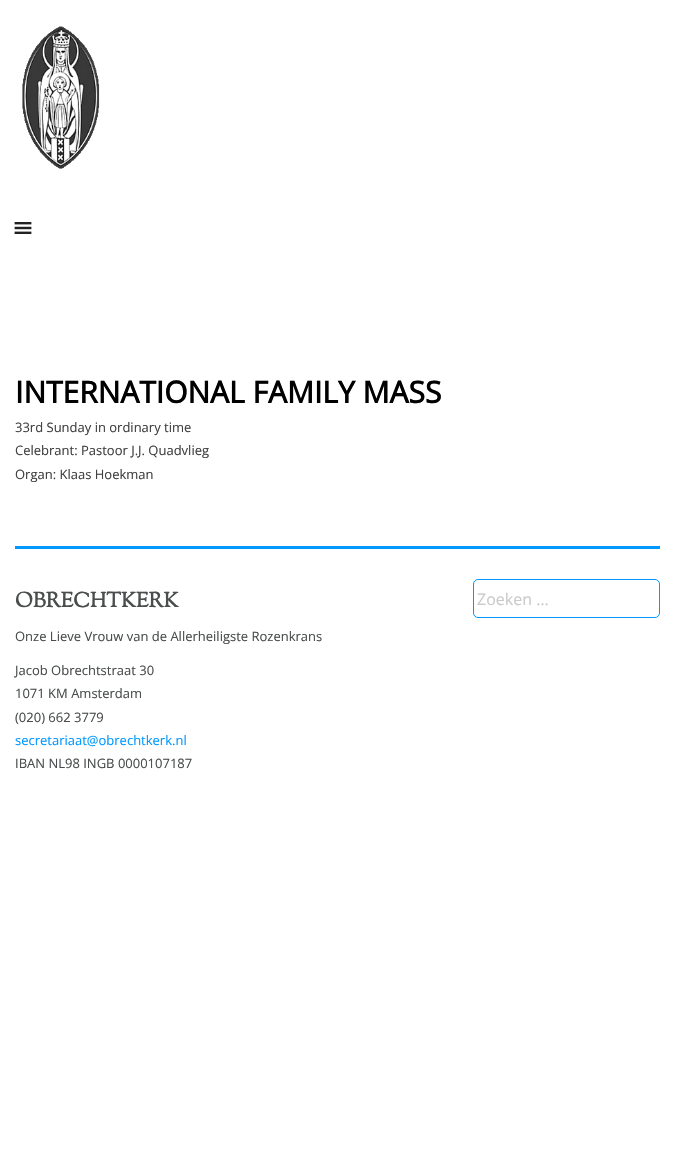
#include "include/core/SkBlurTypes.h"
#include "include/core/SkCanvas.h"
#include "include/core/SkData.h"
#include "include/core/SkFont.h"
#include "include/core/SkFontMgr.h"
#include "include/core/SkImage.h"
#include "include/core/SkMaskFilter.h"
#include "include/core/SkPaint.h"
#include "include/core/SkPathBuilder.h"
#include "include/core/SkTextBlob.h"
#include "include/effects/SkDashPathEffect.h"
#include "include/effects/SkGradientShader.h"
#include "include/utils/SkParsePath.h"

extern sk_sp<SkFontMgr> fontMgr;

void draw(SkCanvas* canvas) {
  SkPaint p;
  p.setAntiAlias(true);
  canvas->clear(SK_ColorWHITE);
  canvas->drawImageRect(SkImages::DeferredFromEncodedData(SkData::MakeFromFileName("images/1.png")), SkRect::MakeLTRB(22, 26, 100, 169), SkSamplingOptions());
  canvas->drawImageRect(SkImages::DeferredFromEncodedData(SkData::MakeFromFileName("images/2.png")), SkRect::MakeLTRB(14, 222, 32, 234), SkSamplingOptions());
  p.setColor(SkColorSetRGB(0, 153, 255));
  canvas->drawRect(SkRect::MakeLTRB(15, 546, 660, 549), p);
  p.setStyle(SkPaint::kStroke_Style);
  p.setStrokeWidth(1);
  canvas->drawRoundRect(SkRect::MakeLTRB(473.5f, 579.5f, 659.5f, 617.5f), 4.5f, 4.5f, p);
  SkFont font1(fontMgr->matchFamilyStyle("Open Sans", SkFontStyle::Bold()), 30);
  font1.setSubpixel(true);
  p.setStyle(SkPaint::kFill_Style);
  p.setColor(SK_ColorBLACK);
  canvas->drawString("INTERNATIONAL FAMILY MASS", 15, 403, font1, p);
  SkFont font2(fontMgr->matchFamilyStyle("Open Sans", SkFontStyle::Normal()), 13);
  font2.setSubpixel(true);
  p.setColor(SkColorSetRGB(64, 64, 64));
  canvas->drawString("33rd Sunday in ordinary time", 15, 432, font2, p);
  canvas->drawString("Celebrant: Pastoor J.J. Quadvlieg", 15, 455, font2, p);
  canvas->drawString("Organ: Klaas Hoekman", 15, 479, font2, p);
  SkFont font3(fontMgr->matchFamilyStyle("Sorts Mill Goudy", SkFontStyle::Bold()), 20.75f);
  font3.setSubpixel(true);
  p.setColor(SkColorSetRGB(74, 77, 77));
  canvas->drawString("OBRECHTKERK", 15, 607, font3, p);
  canvas->drawString("Onze Lieve Vrouw van de Allerheiligste Rozenkrans", 15, 641, font2, p);
  canvas->drawString("Jacob Obrechtstraat 30", 15, 675, font2, p);
  canvas->drawString("1071 KM Amsterdam", 15, 698, font2, p);
  canvas->drawString("(020) 662 3779", 15, 722, font2, p);
  p.setColor(SkColorSetRGB(0, 153, 255));
  canvas->drawString("secretariaat@obrechtkerk.nl", 15, 745, font2, p);
  p.setColor(SkColorSetRGB(74, 77, 77));
  canvas->drawString("IBAN NL98 INGB 0000107187", 15, 768, font2, p);
  SkFont font4(fontMgr->matchFamilyStyle("Open Sans", SkFontStyle::Normal()), 16);
  font4.setSubpixel(true);
  p.setColor(SkColorSetRGB(202, 202, 202));
  canvas->drawString("Zoeken …", 477, 605, font4, p);
}
